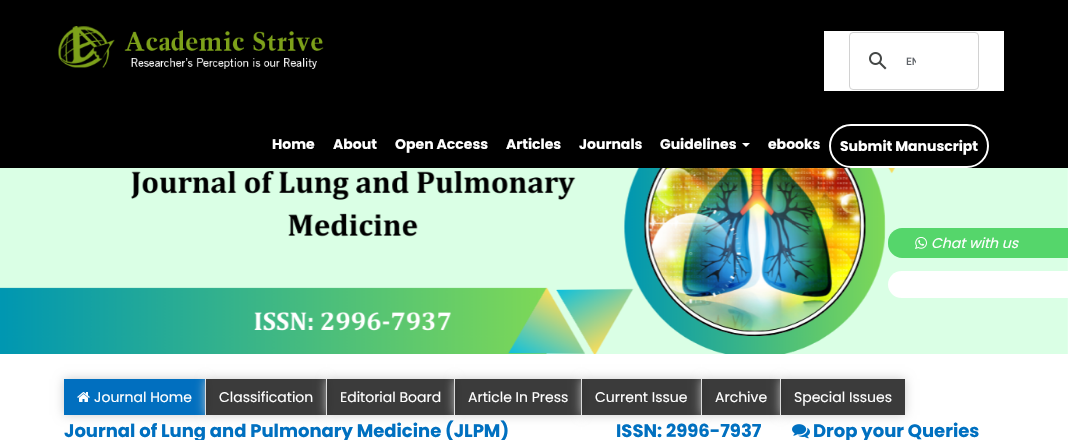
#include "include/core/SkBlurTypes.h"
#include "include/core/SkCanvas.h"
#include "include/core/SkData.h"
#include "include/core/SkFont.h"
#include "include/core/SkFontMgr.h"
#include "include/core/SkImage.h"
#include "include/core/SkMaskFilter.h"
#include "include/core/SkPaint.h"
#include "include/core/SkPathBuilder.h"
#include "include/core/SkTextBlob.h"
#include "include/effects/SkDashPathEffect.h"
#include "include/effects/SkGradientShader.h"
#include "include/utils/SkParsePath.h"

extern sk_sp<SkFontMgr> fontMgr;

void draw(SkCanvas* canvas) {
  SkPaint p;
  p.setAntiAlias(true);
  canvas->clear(SK_ColorWHITE);
  p.setColor(SK_ColorBLACK);
  canvas->drawRect(SkRect::MakeLTRB(0, 0, 1068, 168), p);
  canvas->drawImageRect(SkImages::DeferredFromEncodedData(SkData::MakeFromFileName("images/1.png")), SkRect::MakeLTRB(58, 26, 324, 69), SkSamplingOptions());
  p.setColor(SK_ColorWHITE);
  canvas->drawRect(SkRect::MakeLTRB(824, 31, 1004, 91), p);
  p.setStyle(SkPaint::kStroke_Style);
  p.setStrokeWidth(1);
  p.setColor(SkColorSetRGB(210, 210, 210));
  canvas->drawRoundRect(SkRect::MakeLTRB(849.5f, 32.5f, 978.5f, 89.5f), 3.5f, 3.5f, p);
  canvas->drawImageRect(SkImages::DeferredFromEncodedData(SkData::MakeFromFileName("images/2.png")), SkRect::MakeLTRB(869, 52, 887, 70), SkSamplingOptions());
  canvas->drawImageRect(SkImages::DeferredFromEncodedData(SkData::MakeFromFileName("images/3.png")), SkRect::MakeLTRB(906, 57, 916, 65), SkSamplingOptions());
  p.setStyle(SkPaint::kFill_Style);
  p.setColor(SK_ColorWHITE);
  canvas->drawPath(SkPathBuilder().moveTo(742, 143).lineTo(750, 143).lineTo(746, 147).close().detach(), p);
  p.setStyle(SkPaint::kStroke_Style);
  p.setStrokeWidth(2);
  canvas->drawRoundRect(SkRect::MakeLTRB(830, 125, 988, 167), 21, 21, p);
  canvas->drawImageRect(SkImages::DeferredFromEncodedData(SkData::MakeFromFileName("images/4.png")), SkRect::MakeLTRB(0, 168, 1068, 354), SkSamplingOptions());
  p.setStyle(SkPaint::kFill_Style);
  p.setColor(SkColorSetRGB(85, 214, 107));
  canvas->drawPath(SkPathBuilder().moveTo(902, 228).lineTo(1068, 228).lineTo(1068, 258).lineTo(902, 258).cubicTo(894.5f, 258, 888, 251.5f, 888, 244).lineTo(888, 242).cubicTo(888, 234.5f, 894.5f, 228, 902, 228).close().detach(), p);
  canvas->drawImageRect(SkImages::DeferredFromEncodedData(SkData::MakeFromFileName("images/5.png")), SkRect::MakeLTRB(915, 237, 927, 249), SkSamplingOptions());
  p.setColor(SK_ColorWHITE);
  canvas->drawPath(SkPathBuilder().moveTo(901.5f, 271).lineTo(1068, 271).lineTo(1068, 298).lineTo(901.5f, 298).cubicTo(894, 298, 888, 292, 888, 284.5f).cubicTo(888, 277, 894, 271, 901.5f, 271).close().detach(), p);
  p.setColor(SkColorSetRGB(204, 204, 204));
  p.setMaskFilter(SkMaskFilter::MakeBlur(kNormal_SkBlurStyle, 5));
  canvas->drawRect(SkRect::MakeLTRB(64, 379, 205, 415), p);
  p.setMaskFilter(nullptr);
  p.setColor(SkColorSetRGB(1, 111, 191));
  canvas->drawRect(SkRect::MakeLTRB(64, 379, 205, 415), p);
  canvas->drawImageRect(SkImages::DeferredFromEncodedData(SkData::MakeFromFileName("images/6.png")), SkRect::MakeLTRB(77, 392, 90, 402), SkSamplingOptions());
  canvas->save();
  canvas->clipPath(SkPathBuilder(SkPathFillType::kEvenOdd).moveTo(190, 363).lineTo(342, 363).lineTo(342, 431).lineTo(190, 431).close().moveTo(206, 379).lineTo(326, 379).lineTo(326, 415).lineTo(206, 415).close().detach(), true);
  p.setColor(SkColorSetRGB(204, 204, 204));
  p.setMaskFilter(SkMaskFilter::MakeBlur(kNormal_SkBlurStyle, 5));
  canvas->drawRect(SkRect::MakeLTRB(206, 379, 326, 415), p);
  p.setMaskFilter(nullptr);
  canvas->restore();
  p.setColor(SkColorSetARGB(196, 0, 0, 0));
  canvas->drawRect(SkRect::MakeLTRB(206, 379, 326, 415), p);
  canvas->save();
  canvas->clipPath(SkPathBuilder(SkPathFillType::kEvenOdd).moveTo(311, 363).lineTo(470, 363).lineTo(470, 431).lineTo(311, 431).close().moveTo(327, 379).lineTo(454, 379).lineTo(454, 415).lineTo(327, 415).close().detach(), true);
  p.setColor(SkColorSetRGB(204, 204, 204));
  p.setMaskFilter(SkMaskFilter::MakeBlur(kNormal_SkBlurStyle, 5));
  canvas->drawRect(SkRect::MakeLTRB(327, 379, 454, 415), p);
  p.setMaskFilter(nullptr);
  canvas->restore();
  p.setColor(SkColorSetARGB(196, 0, 0, 0));
  canvas->drawRect(SkRect::MakeLTRB(327, 379, 454, 415), p);
  canvas->save();
  canvas->clipPath(SkPathBuilder(SkPathFillType::kEvenOdd).moveTo(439, 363).lineTo(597, 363).lineTo(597, 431).lineTo(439, 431).close().moveTo(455, 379).lineTo(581, 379).lineTo(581, 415).lineTo(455, 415).close().detach(), true);
  p.setColor(SkColorSetRGB(204, 204, 204));
  p.setMaskFilter(SkMaskFilter::MakeBlur(kNormal_SkBlurStyle, 5));
  canvas->drawRect(SkRect::MakeLTRB(455, 379, 581, 415), p);
  p.setMaskFilter(nullptr);
  canvas->restore();
  p.setColor(SkColorSetARGB(196, 0, 0, 0));
  canvas->drawRect(SkRect::MakeLTRB(455, 379, 581, 415), p);
  canvas->save();
  canvas->clipPath(SkPathBuilder(SkPathFillType::kEvenOdd).moveTo(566, 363).lineTo(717, 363).lineTo(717, 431).lineTo(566, 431).close().moveTo(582, 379).lineTo(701, 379).lineTo(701, 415).lineTo(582, 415).close().detach(), true);
  p.setColor(SkColorSetRGB(204, 204, 204));
  p.setMaskFilter(SkMaskFilter::MakeBlur(kNormal_SkBlurStyle, 5));
  canvas->drawRect(SkRect::MakeLTRB(582, 379, 701, 415), p);
  p.setMaskFilter(nullptr);
  canvas->restore();
  p.setColor(SkColorSetARGB(196, 0, 0, 0));
  canvas->drawRect(SkRect::MakeLTRB(582, 379, 701, 415), p);
  canvas->save();
  canvas->clipPath(SkPathBuilder(SkPathFillType::kEvenOdd).moveTo(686, 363).lineTo(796, 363).lineTo(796, 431).lineTo(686, 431).close().moveTo(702, 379).lineTo(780, 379).lineTo(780, 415).lineTo(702, 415).close().detach(), true);
  p.setColor(SkColorSetRGB(204, 204, 204));
  p.setMaskFilter(SkMaskFilter::MakeBlur(kNormal_SkBlurStyle, 5));
  canvas->drawRect(SkRect::MakeLTRB(702, 379, 780, 415), p);
  p.setMaskFilter(nullptr);
  canvas->restore();
  p.setColor(SkColorSetARGB(196, 0, 0, 0));
  canvas->drawRect(SkRect::MakeLTRB(702, 379, 780, 415), p);
  canvas->save();
  canvas->clipPath(SkPathBuilder(SkPathFillType::kEvenOdd).moveTo(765, 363).lineTo(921, 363).lineTo(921, 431).lineTo(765, 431).close().moveTo(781, 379).lineTo(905, 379).lineTo(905, 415).lineTo(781, 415).close().detach(), true);
  p.setColor(SkColorSetRGB(204, 204, 204));
  p.setMaskFilter(SkMaskFilter::MakeBlur(kNormal_SkBlurStyle, 5));
  canvas->drawRect(SkRect::MakeLTRB(781, 379, 905, 415), p);
  p.setMaskFilter(nullptr);
  canvas->restore();
  p.setColor(SkColorSetARGB(196, 0, 0, 0));
  canvas->drawRect(SkRect::MakeLTRB(781, 379, 905, 415), p);
  canvas->drawImageRect(SkImages::DeferredFromEncodedData(SkData::MakeFromFileName("images/7.png")), SkRect::MakeLTRB(792, 424, 810, 439), SkSamplingOptions());
  SkFont font1(fontMgr->matchFamilyStyle("Poppins", SkFontStyle::Bold()), 14);
  font1.setSubpixel(true);
  p.setColor(SK_ColorWHITE);
  canvas->drawString("Home", 272, 149, font1, p);
  canvas->drawString("About", 333, 149, font1, p);
  canvas->drawString("Open Access", 395, 149, font1, p);
  canvas->drawString("Articles", 506, 149, font1, p);
  canvas->drawString("Journals", 579, 149, font1, p);
  canvas->drawString("Guidelines", 660, 149, font1, p);
  canvas->drawString("ebooks", 768, 149, font1, p);
  canvas->drawString("Submit Manuscript", 840, 151, font1, p);
  SkFont font2(fontMgr->matchFamilyStyle("Poppins", SkFontStyle::Italic()), 14);
  font2.setSubpixel(true);
  canvas->drawString("Chat with us", 931, 248, font2, p);
  SkFont font3(fontMgr->matchFamilyStyle("Poppins", SkFontStyle::Normal()), 14);
  font3.setSubpixel(true);
  canvas->drawString("Journal Home", 94, 402, font3, p);
  canvas->drawString("Classification", 219, 402, font3, p);
  canvas->drawString("Editorial Board", 340, 402, font3, p);
  canvas->drawString("Article In Press", 468, 402, font3, p);
  canvas->drawString("Current Issue", 595, 402, font3, p);
  canvas->drawString("Archive", 715, 402, font3, p);
  canvas->drawString("Special Issues", 794, 402, font3, p);
  SkFont font4(fontMgr->matchFamilyStyle("Poppins", SkFontStyle::Bold()), 18);
  font4.setSubpixel(true);
  p.setColor(SkColorSetRGB(0, 112, 192));
  canvas->drawString("Journal of Lung and Pulmonary Medicine (JLPM)", 64, 437, font4, p);
  canvas->drawString("ISSN: 2996-7937", 616, 437, font4, p);
  canvas->drawString("Drop your Queries", 813, 437, font4, p);
}
